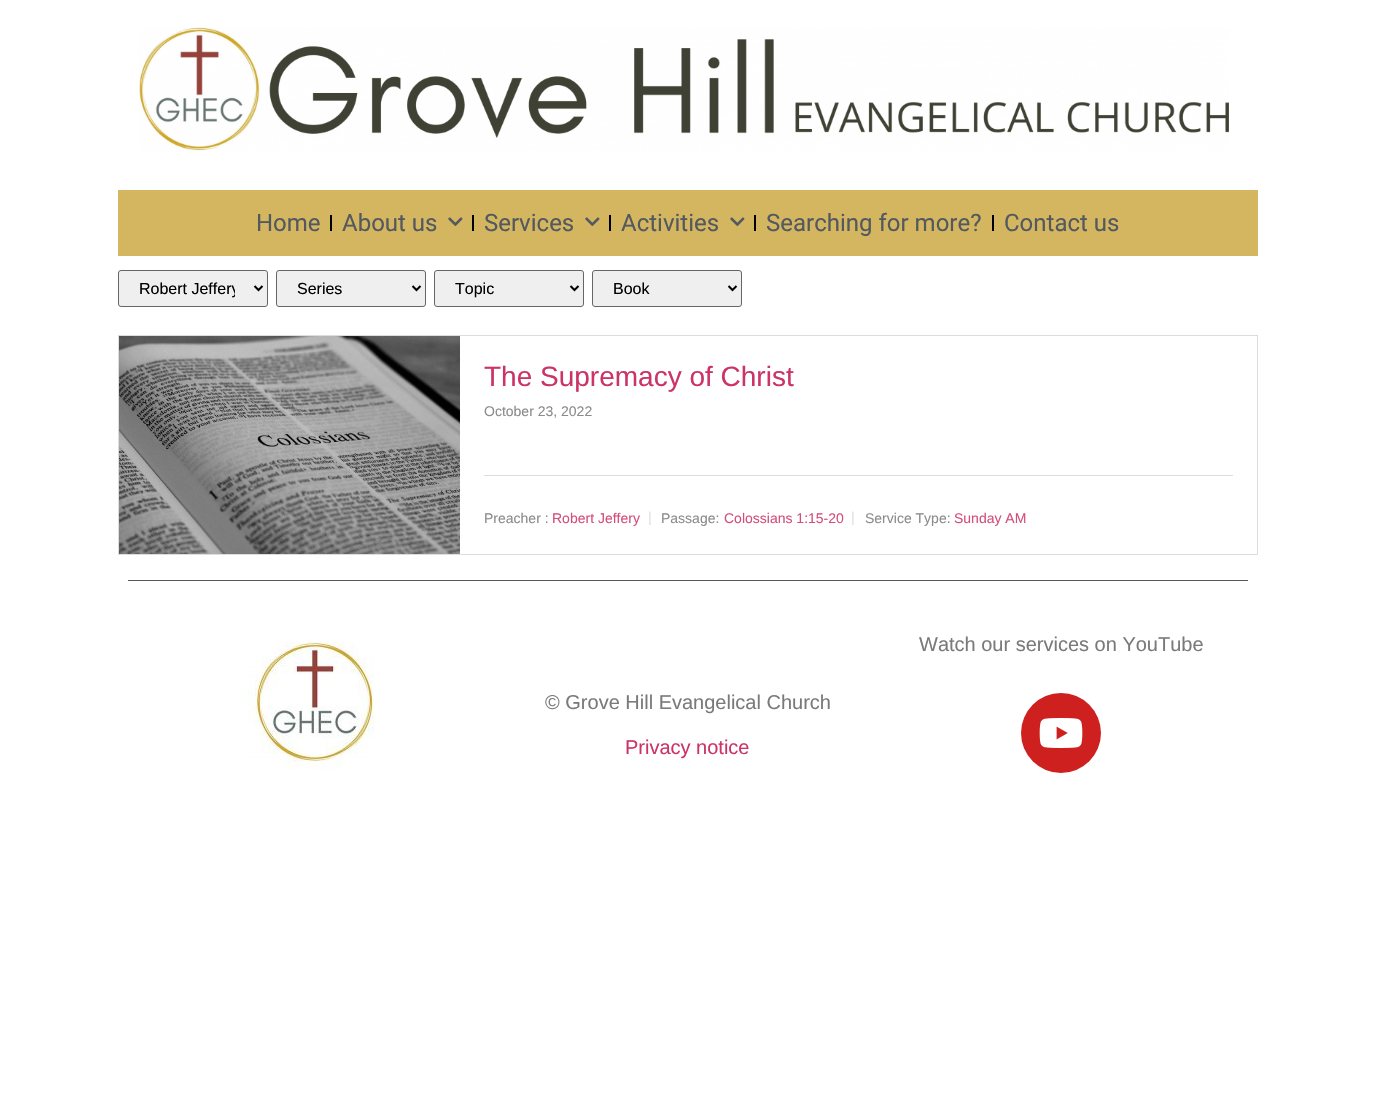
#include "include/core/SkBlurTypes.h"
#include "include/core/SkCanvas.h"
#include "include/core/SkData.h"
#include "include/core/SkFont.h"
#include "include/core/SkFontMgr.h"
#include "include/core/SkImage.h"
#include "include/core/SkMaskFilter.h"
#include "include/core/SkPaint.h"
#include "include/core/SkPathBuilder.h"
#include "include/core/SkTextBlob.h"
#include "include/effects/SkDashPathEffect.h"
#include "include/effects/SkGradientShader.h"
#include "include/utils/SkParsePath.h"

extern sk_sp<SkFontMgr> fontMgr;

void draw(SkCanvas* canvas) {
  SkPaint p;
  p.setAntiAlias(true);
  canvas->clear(SK_ColorWHITE);
  canvas->drawImageRect(SkImages::DeferredFromEncodedData(SkData::MakeFromFileName("images/1.png")), SkRect::MakeLTRB(139, 27, 1229, 151), SkSamplingOptions());
  p.setColor(SkColorSetRGB(212, 182, 96));
  canvas->drawRect(SkRect::MakeLTRB(118, 190, 1258, 256), p);
  p.setColor(SK_ColorBLACK);
  canvas->drawRect(SkRect::MakeLTRB(330, 215, 332, 231), p);
  canvas->drawImageRect(SkImages::DeferredFromEncodedData(SkData::MakeFromFileName("images/2.png")), SkRect::MakeLTRB(448, 217, 463, 226), SkSamplingOptions());
  canvas->drawRect(SkRect::MakeLTRB(472, 215, 474, 231), p);
  canvas->drawImageRect(SkImages::DeferredFromEncodedData(SkData::MakeFromFileName("images/2.png")), SkRect::MakeLTRB(585, 217, 600, 226), SkSamplingOptions());
  canvas->drawRect(SkRect::MakeLTRB(609, 215, 611, 231), p);
  canvas->drawImageRect(SkImages::DeferredFromEncodedData(SkData::MakeFromFileName("images/2.png")), SkRect::MakeLTRB(730, 217, 745, 226), SkSamplingOptions());
  canvas->drawRect(SkRect::MakeLTRB(754, 215, 756, 231), p);
  canvas->drawRect(SkRect::MakeLTRB(992, 215, 994, 231), p);
  p.setColor(SkColorSetRGB(239, 239, 239));
  canvas->drawRoundRect(SkRect::MakeLTRB(118.5f, 270.5f, 267.5f, 306.5f), 2.5f, 2.5f, p);
  p.setStyle(SkPaint::kStroke_Style);
  p.setStrokeWidth(1);
  p.setColor(SkColorSetRGB(102, 102, 102));
  canvas->drawRoundRect(SkRect::MakeLTRB(118.5f, 270.5f, 267.5f, 306.5f), 2.5f, 2.5f, p);
  p.setStrokeWidth(2);
  p.setColor(SK_ColorBLACK);
  canvas->drawPath(SkPathBuilder().moveTo(254.5f, 286).lineTo(258.5f, 290).lineTo(262.5f, 286).detach(), p);
  p.setStyle(SkPaint::kFill_Style);
  p.setColor(SkColorSetRGB(239, 239, 239));
  canvas->drawRoundRect(SkRect::MakeLTRB(276.5f, 270.5f, 425.5f, 306.5f), 2.5f, 2.5f, p);
  p.setStyle(SkPaint::kStroke_Style);
  p.setStrokeWidth(1);
  p.setColor(SkColorSetRGB(102, 102, 102));
  canvas->drawRoundRect(SkRect::MakeLTRB(276.5f, 270.5f, 425.5f, 306.5f), 2.5f, 2.5f, p);
  p.setStrokeWidth(2);
  p.setColor(SK_ColorBLACK);
  canvas->drawPath(SkPathBuilder().moveTo(412.5f, 286).lineTo(416.5f, 290).lineTo(420.5f, 286).detach(), p);
  p.setStyle(SkPaint::kFill_Style);
  p.setColor(SkColorSetRGB(239, 239, 239));
  canvas->drawRoundRect(SkRect::MakeLTRB(434.5f, 270.5f, 583.5f, 306.5f), 2.5f, 2.5f, p);
  p.setStyle(SkPaint::kStroke_Style);
  p.setStrokeWidth(1);
  p.setColor(SkColorSetRGB(102, 102, 102));
  canvas->drawRoundRect(SkRect::MakeLTRB(434.5f, 270.5f, 583.5f, 306.5f), 2.5f, 2.5f, p);
  p.setStrokeWidth(2);
  p.setColor(SK_ColorBLACK);
  canvas->drawPath(SkPathBuilder().moveTo(570.5f, 286).lineTo(574.5f, 290).lineTo(578.5f, 286).detach(), p);
  p.setStyle(SkPaint::kFill_Style);
  p.setColor(SkColorSetRGB(239, 239, 239));
  canvas->drawRoundRect(SkRect::MakeLTRB(592.5f, 270.5f, 741.5f, 306.5f), 2.5f, 2.5f, p);
  p.setStyle(SkPaint::kStroke_Style);
  p.setStrokeWidth(1);
  p.setColor(SkColorSetRGB(102, 102, 102));
  canvas->drawRoundRect(SkRect::MakeLTRB(592.5f, 270.5f, 741.5f, 306.5f), 2.5f, 2.5f, p);
  p.setStrokeWidth(2);
  p.setColor(SK_ColorBLACK);
  canvas->drawPath(SkPathBuilder().moveTo(728.5f, 286).lineTo(732.5f, 290).lineTo(736.5f, 286).detach(), p);
  p.setStrokeWidth(1);
  p.setColor(SkColorSetRGB(221, 221, 221));
  canvas->drawRect(SkRect::MakeLTRB(118.5f, 335.5f, 1257.5f, 554.5f), p);
  canvas->drawImageRect(SkImages::DeferredFromEncodedData(SkData::MakeFromFileName("images/3.png")), SkRect::MakeLTRB(119, 336, 460, 554), SkSamplingOptions());
  p.setStyle(SkPaint::kFill_Style);
  canvas->drawRect(SkRect::MakeLTRB(484, 475, 1233, 476), p);
  p.setColor(SkColorSetRGB(84, 89, 95));
  canvas->drawRect(SkRect::MakeLTRB(128, 580, 1248, 581), p);
  canvas->drawImageRect(SkImages::DeferredFromEncodedData(SkData::MakeFromFileName("images/4.png")), SkRect::MakeLTRB(246, 641, 374, 770), SkSamplingOptions());
  p.setColor(SkColorSetRGB(205, 32, 31));
  canvas->drawCircle(1061, 733, 40, p);
  canvas->drawImageRect(SkImages::DeferredFromEncodedData(SkData::MakeFromFileName("images/5.png")), SkRect::MakeLTRB(1039, 718, 1083, 748), SkSamplingOptions());
  SkFont font1(fontMgr->matchFamilyStyle("Roboto", SkFontStyle::Normal()), 24);
  font1.setSubpixel(true);
  p.setColor(SkColorSetRGB(84, 89, 95));
  canvas->drawString("Home", 256, 231, font1, p);
  canvas->drawString("About us", 342, 231, font1, p);
  canvas->drawString("Services", 484, 231, font1, p);
  canvas->drawString("Activities", 621, 231, font1, p);
  canvas->drawString("Searching for more?", 766, 231, font1, p);
  canvas->drawString("Contact us", 1004, 231, font1, p);
  canvas->save();
  canvas->clipRect(SkRect::MakeLTRB(139, 279, 235, 298));
  SkFont font2(fontMgr->matchFamilyStyle("Liberation Sans", SkFontStyle::Normal()), 16);
  font2.setSubpixel(true);
  p.setColor(SK_ColorBLACK);
  canvas->drawString("Robert Jeffery", 139, 294, font2, p);
  canvas->restore();
  canvas->drawString("Series", 297, 294, font2, p);
  canvas->drawString("Topic", 455, 294, font2, p);
  canvas->drawString("Book", 613, 294, font2, p);
  SkFont font3(fontMgr->matchFamilyStyle("Liberation Sans", SkFontStyle::Normal()), 28);
  font3.setSubpixel(true);
  p.setColor(SkColorSetRGB(204, 51, 102));
  canvas->drawString("The Supremacy of Christ", 484, 386, font3, p);
  SkFont font4(fontMgr->matchFamilyStyle("Liberation Sans", SkFontStyle::Normal()), 14);
  font4.setSubpixel(true);
  p.setColor(SkColorSetRGB(139, 139, 139));
  canvas->drawString("October 23, 2022", 484, 416, font4, p);
  canvas->drawString("Preacher :", 484, 523, font4, p);
  p.setColor(SkColorSetRGB(211, 78, 122));
  canvas->drawString("Robert Jeffery", 552, 523, font4, p);
  p.setColor(SkColorSetRGB(225, 225, 225));
  canvas->drawString("|", 648, 522, font4, p);
  p.setColor(SkColorSetRGB(139, 139, 139));
  canvas->drawString("Passage:", 661, 523, font4, p);
  p.setColor(SkColorSetRGB(211, 78, 122));
  canvas->drawString("Colossians 1:15-20", 724, 523, font4, p);
  p.setColor(SkColorSetRGB(225, 225, 225));
  canvas->drawString("|", 851, 522, font4, p);
  p.setColor(SkColorSetRGB(139, 139, 139));
  canvas->drawString("Service Type:", 865, 523, font4, p);
  p.setColor(SkColorSetRGB(211, 78, 122));
  canvas->drawString("Sunday AM", 954, 523, font4, p);
  SkFont font5(fontMgr->matchFamilyStyle("Liberation Sans", SkFontStyle::Normal()), 20);
  font5.setSubpixel(true);
  p.setColor(SkColorSetRGB(122, 122, 122));
  canvas->drawString("© Grove Hill Evangelical Church", 545, 709, font5, p);
  p.setColor(SkColorSetRGB(204, 51, 102));
  canvas->drawString("Privacy notice", 625, 754, font5, p);
  p.setColor(SkColorSetRGB(122, 122, 122));
  canvas->drawString("Watch our services on YouTube", 919, 651, font5, p);
}
